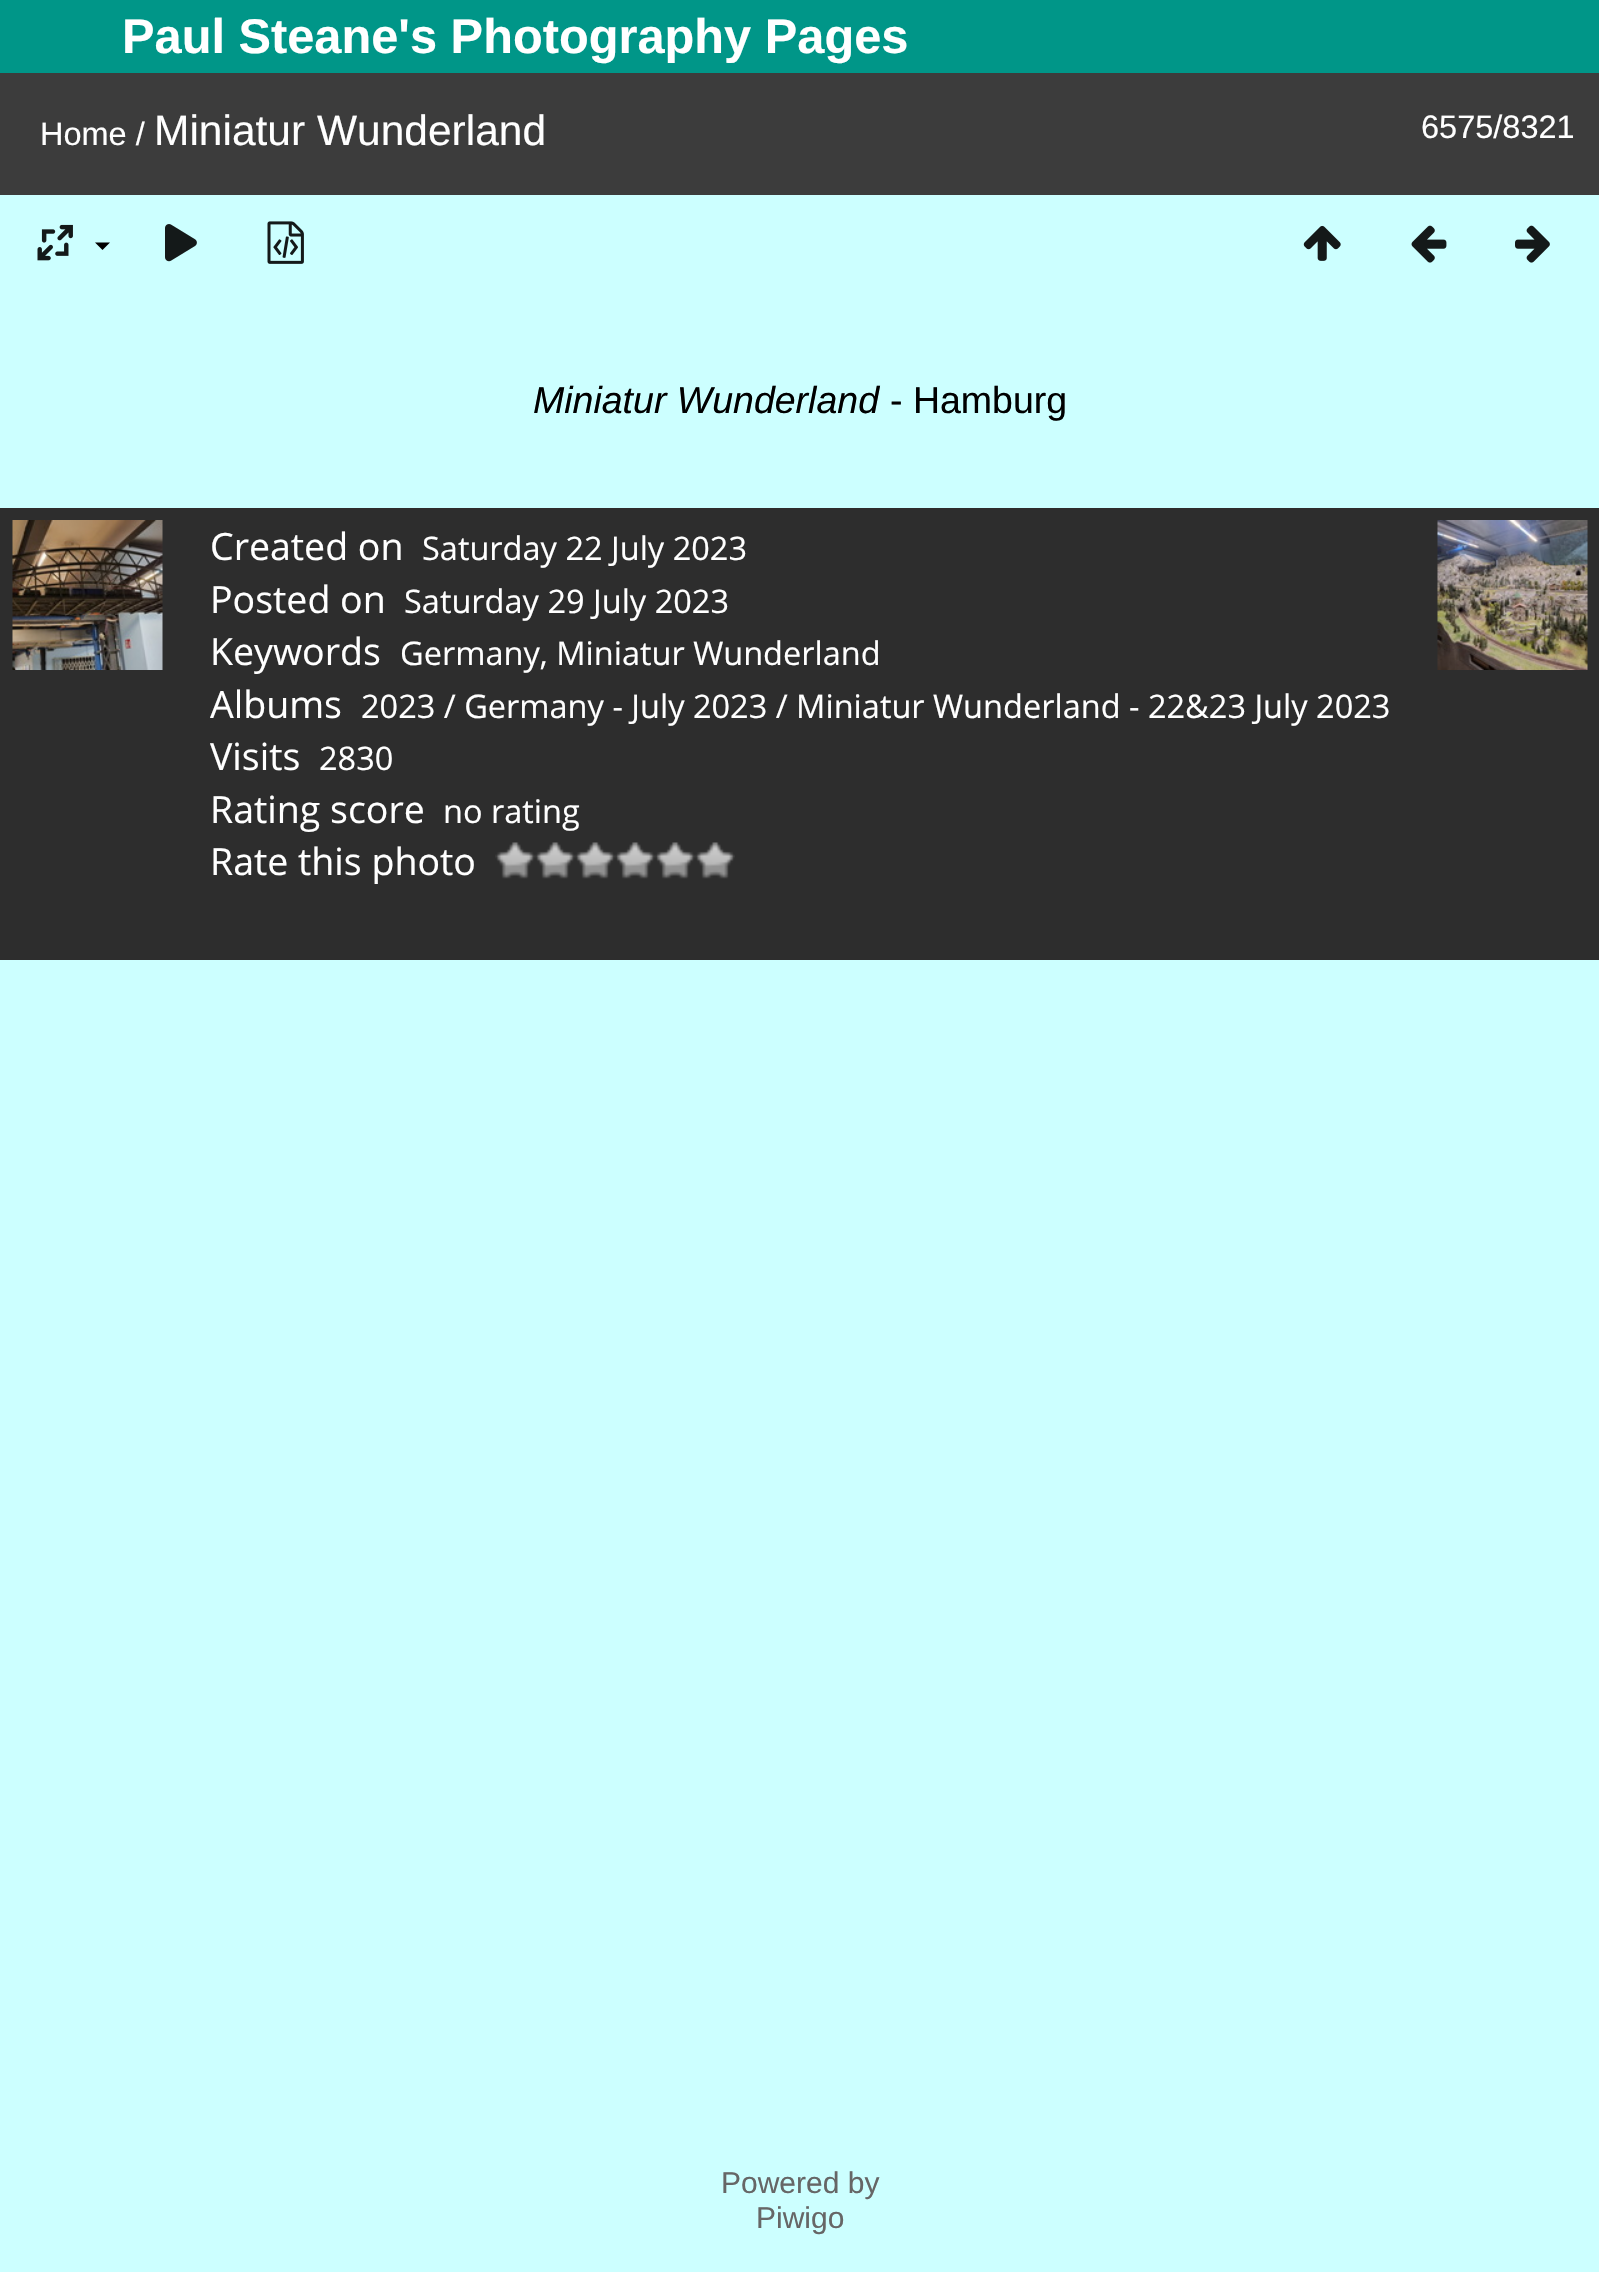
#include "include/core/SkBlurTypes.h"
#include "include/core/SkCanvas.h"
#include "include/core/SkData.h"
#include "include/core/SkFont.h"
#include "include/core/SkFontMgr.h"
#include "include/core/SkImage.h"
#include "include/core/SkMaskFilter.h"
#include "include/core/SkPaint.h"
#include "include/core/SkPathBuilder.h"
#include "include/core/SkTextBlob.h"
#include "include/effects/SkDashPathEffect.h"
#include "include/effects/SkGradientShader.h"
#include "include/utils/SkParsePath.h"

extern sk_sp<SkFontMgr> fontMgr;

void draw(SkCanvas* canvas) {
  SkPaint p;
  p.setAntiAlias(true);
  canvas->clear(SkColorSetRGB(204, 255, 255));
  p.setColor(SkColorSetRGB(0, 150, 136));
  canvas->drawRect(SkRect::MakeLTRB(0, 0, 1599, 73), p);
  p.setColor(SkColorSetRGB(60, 60, 60));
  canvas->drawRect(SkRect::MakeLTRB(0, 73, 1599, 195), p);
  canvas->drawImageRect(SkImages::DeferredFromEncodedData(SkData::MakeFromFileName("images/1.png")), SkRect::MakeLTRB(37, 224, 73, 261), SkSamplingOptions());
  p.setColor(SK_ColorBLACK);
  canvas->drawPath(SkPathBuilder().moveTo(95, 242.5f).lineTo(110, 242.5f).lineTo(102.5f, 250).close().detach(), p);
  canvas->drawImageRect(SkImages::DeferredFromEncodedData(SkData::MakeFromFileName("images/2.png")), SkRect::MakeLTRB(165, 224, 197, 262), SkSamplingOptions());
  canvas->drawImageRect(SkImages::DeferredFromEncodedData(SkData::MakeFromFileName("images/3.png")), SkRect::MakeLTRB(267, 221, 304, 264), SkSamplingOptions());
  canvas->drawImageRect(SkImages::DeferredFromEncodedData(SkData::MakeFromFileName("images/4.png")), SkRect::MakeLTRB(1303, 225, 1341, 261), SkSamplingOptions());
  canvas->drawImageRect(SkImages::DeferredFromEncodedData(SkData::MakeFromFileName("images/5.png")), SkRect::MakeLTRB(1411, 225, 1447, 263), SkSamplingOptions());
  canvas->drawImageRect(SkImages::DeferredFromEncodedData(SkData::MakeFromFileName("images/6.png")), SkRect::MakeLTRB(1515, 225, 1550, 263), SkSamplingOptions());
  p.setColor(SkColorSetRGB(45, 45, 45));
  canvas->drawRect(SkRect::MakeLTRB(0, 508, 1599, 960), p);
  canvas->drawImageRect(SkImages::DeferredFromEncodedData(SkData::MakeFromFileName("images/7.png")), SkRect::MakeLTRB(12, 520, 163, 670), SkSamplingOptions());
  canvas->drawImageRect(SkImages::DeferredFromEncodedData(SkData::MakeFromFileName("images/8.png")), SkRect::MakeLTRB(1437, 520, 1588, 670), SkSamplingOptions());
  canvas->drawImageRect(SkImages::DeferredFromEncodedData(SkData::MakeFromFileName("images/9.png")), SkRect::MakeLTRB(495, 842, 535, 879), SkSamplingOptions());
  canvas->drawImageRect(SkImages::DeferredFromEncodedData(SkData::MakeFromFileName("images/10.png")), SkRect::MakeLTRB(535, 842, 575, 879), SkSamplingOptions());
  canvas->drawImageRect(SkImages::DeferredFromEncodedData(SkData::MakeFromFileName("images/11.png")), SkRect::MakeLTRB(575, 842, 615, 879), SkSamplingOptions());
  canvas->drawImageRect(SkImages::DeferredFromEncodedData(SkData::MakeFromFileName("images/12.png")), SkRect::MakeLTRB(615, 842, 655, 879), SkSamplingOptions());
  canvas->drawImageRect(SkImages::DeferredFromEncodedData(SkData::MakeFromFileName("images/12.png")), SkRect::MakeLTRB(655, 842, 695, 879), SkSamplingOptions());
  canvas->drawImageRect(SkImages::DeferredFromEncodedData(SkData::MakeFromFileName("images/11.png")), SkRect::MakeLTRB(695, 842, 735, 879), SkSamplingOptions());
  SkFont font1(fontMgr->matchFamilyStyle("Liberation Sans", SkFontStyle::Bold()), 48.75f);
  font1.setSubpixel(true);
  p.setColor(SK_ColorWHITE);
  canvas->drawString("Paul Steane's Photography Pages", 122, 53, font1, p);
  SkFont font2(fontMgr->matchFamilyStyle("Liberation Sans", SkFontStyle::Normal()), 32.5f);
  font2.setSubpixel(true);
  canvas->drawString("Home /", 40, 145, font2, p);
  SkFont font3(fontMgr->matchFamilyStyle("Liberation Sans", SkFontStyle::Normal()), 42.5f);
  font3.setSubpixel(true);
  canvas->drawString("Miniatur Wunderland", 154, 145, font3, p);
  canvas->drawString("6575/8321", 1421, 138, font2, p);
  SkFont font4(fontMgr->matchFamilyStyle("Liberation Sans", SkFontStyle::Italic()), 37.5f);
  font4.setSubpixel(true);
  p.setColor(SK_ColorBLACK);
  canvas->drawString("Miniatur Wunderland", 533, 413, font4, p);
  SkFont font5(fontMgr->matchFamilyStyle("Liberation Sans", SkFontStyle::Normal()), 37.5f);
  font5.setSubpixel(true);
  canvas->drawString("- Hamburg", 890, 413, font5, p);
  SkFont font6(fontMgr->matchFamilyStyle("Open Sans", SkFontStyle::Normal()), 37.5f);
  font6.setSubpixel(true);
  p.setColor(SK_ColorWHITE);
  canvas->drawString("Created on", 210, 560, font6, p);
  SkFont font7(fontMgr->matchFamilyStyle("Open Sans", SkFontStyle::Normal()), 32.5f);
  font7.setSubpixel(true);
  canvas->drawString("Saturday 22 July 2023", 422, 560, font7, p);
  canvas->drawString("Posted on", 210, 613, font6, p);
  canvas->drawString("Saturday 29 July 2023", 404, 613, font7, p);
  canvas->drawString("Keywords", 210, 665, font6, p);
  canvas->drawString("Germany, Miniatur Wunderland", 400, 665, font7, p);
  canvas->drawString("Albums", 210, 718, font6, p);
  canvas->drawString("2023 / Germany - July 2023 / Miniatur Wunderland - 22&23 July 2023", 361, 718, font7, p);
  canvas->drawString("Visits", 210, 770, font6, p);
  canvas->drawString("2830", 319, 770, font7, p);
  canvas->drawString("Rating score", 210, 823, font6, p);
  canvas->drawString("no rating", 443, 823, font7, p);
  canvas->drawString("Rate this photo", 210, 875, font6, p);
  SkFont font8(fontMgr->matchFamilyStyle("Liberation Sans", SkFontStyle::Normal()), 30);
  font8.setSubpixel(true);
  p.setColor(SkColorSetRGB(102, 102, 102));
  canvas->drawString("Powered by", 721, 2193, font8, p);
  canvas->drawString("Piwigo", 756, 2228, font8, p);
}
